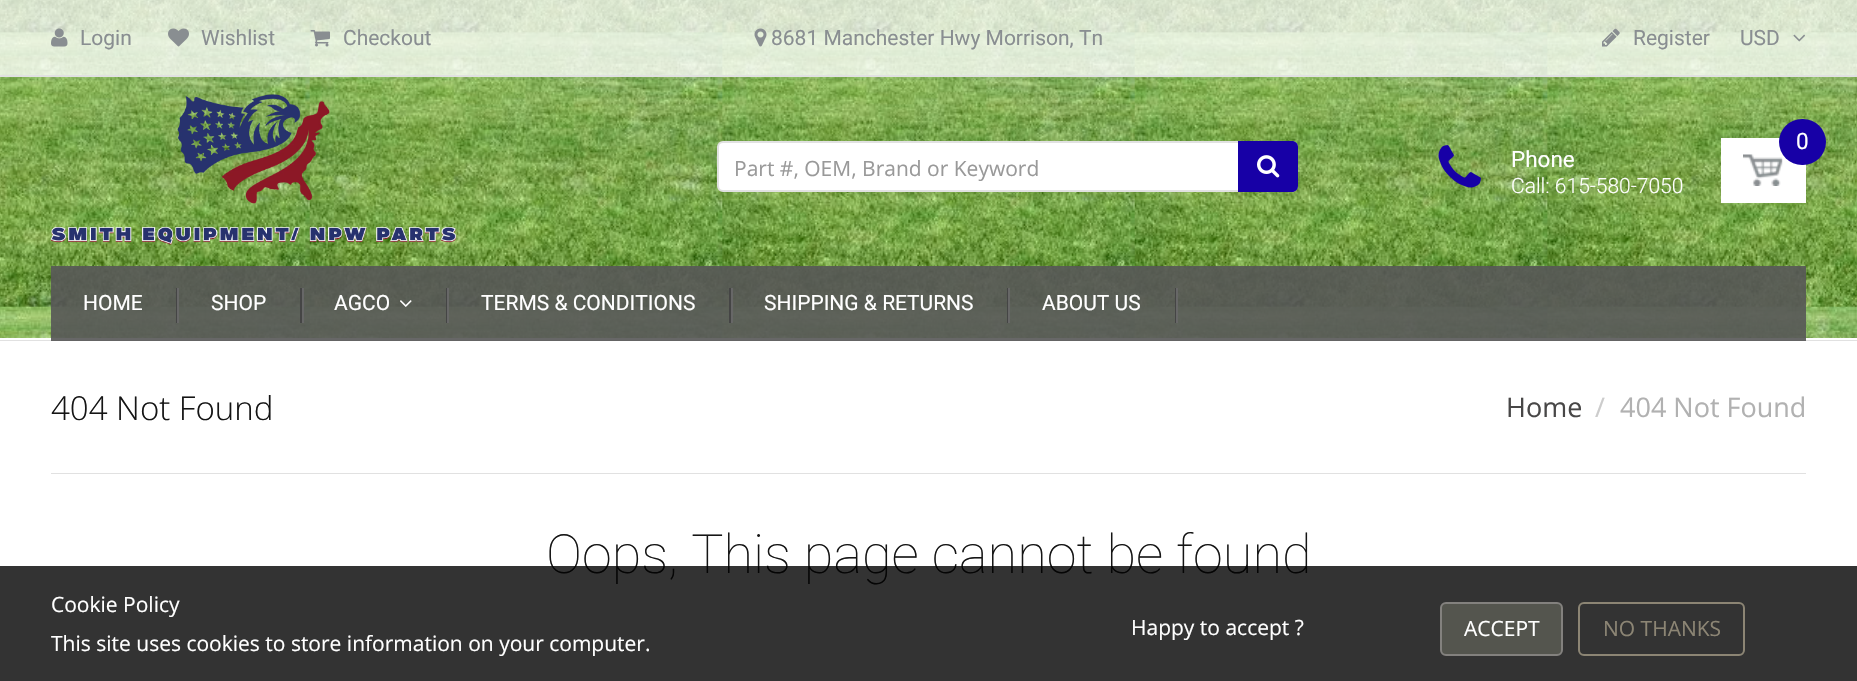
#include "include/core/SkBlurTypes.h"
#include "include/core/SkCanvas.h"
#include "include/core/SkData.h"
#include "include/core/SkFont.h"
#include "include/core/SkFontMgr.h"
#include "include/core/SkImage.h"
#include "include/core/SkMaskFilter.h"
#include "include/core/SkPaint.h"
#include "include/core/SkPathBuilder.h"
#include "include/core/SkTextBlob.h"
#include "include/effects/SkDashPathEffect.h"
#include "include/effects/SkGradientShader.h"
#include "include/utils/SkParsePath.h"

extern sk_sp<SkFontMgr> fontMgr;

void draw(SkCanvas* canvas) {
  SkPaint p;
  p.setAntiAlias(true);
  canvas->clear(SK_ColorWHITE);
  canvas->drawImageRect(SkImages::DeferredFromEncodedData(SkData::MakeFromFileName("images/1.png")), SkRect::MakeLTRB(0, 0, 1857, 338), SkSamplingOptions());
  p.setColor(SkColorSetRGB(225, 225, 225));
  canvas->drawRect(SkRect::MakeLTRB(0, 340, 1857, 341), p);
  p.setColor(SkColorSetARGB(191, 255, 255, 255));
  canvas->drawRect(SkRect::MakeLTRB(0, 0, 1857, 75), p);
  p.setColor(SkColorSetRGB(225, 225, 225));
  canvas->drawRect(SkRect::MakeLTRB(0, 75, 1857, 77), p);
  canvas->drawImageRect(SkImages::DeferredFromEncodedData(SkData::MakeFromFileName("images/2.png")), SkRect::MakeLTRB(51, 28, 68, 47), SkSamplingOptions());
  canvas->drawImageRect(SkImages::DeferredFromEncodedData(SkData::MakeFromFileName("images/3.png")), SkRect::MakeLTRB(168, 28, 189, 47), SkSamplingOptions());
  canvas->drawImageRect(SkImages::DeferredFromEncodedData(SkData::MakeFromFileName("images/4.png")), SkRect::MakeLTRB(310, 30, 330, 47), SkSamplingOptions());
  canvas->drawImageRect(SkImages::DeferredFromEncodedData(SkData::MakeFromFileName("images/5.png")), SkRect::MakeLTRB(754, 28, 767, 47), SkSamplingOptions());
  canvas->drawImageRect(SkImages::DeferredFromEncodedData(SkData::MakeFromFileName("images/6.png")), SkRect::MakeLTRB(1602, 28, 1620, 47), SkSamplingOptions());
  canvas->drawImageRect(SkImages::DeferredFromEncodedData(SkData::MakeFromFileName("images/7.png")), SkRect::MakeLTRB(1793, 34, 1805, 42), SkSamplingOptions());
  canvas->drawImageRect(SkImages::DeferredFromEncodedData(SkData::MakeFromFileName("images/8.png")), SkRect::MakeLTRB(51, 94, 456, 245), SkSamplingOptions());
  p.setColor(SK_ColorWHITE);
  canvas->drawRect(SkRect::MakeLTRB(1721, 138, 1806, 203), p);
  canvas->drawImageRect(SkImages::DeferredFromEncodedData(SkData::MakeFromFileName("images/9.png")), SkRect::MakeLTRB(1743, 154, 1783, 186), SkSamplingOptions());
  p.setColor(SkColorSetRGB(23, 0, 166));
  canvas->drawRoundRect(SkRect::MakeLTRB(1779, 119, 1826, 165), 23, 23, p);
  p.setColor(SK_ColorWHITE);
  canvas->drawRoundRect(SkRect::MakeLTRB(718, 142, 1297, 191), 5, 5, p);
  p.setStyle(SkPaint::kStroke_Style);
  p.setStrokeWidth(2);
  p.setColor(SkColorSetRGB(225, 225, 225));
  canvas->drawRoundRect(SkRect::MakeLTRB(718, 142, 1297, 191), 5, 5, p);
  p.setStyle(SkPaint::kFill_Style);
  p.setColor(SkColorSetRGB(23, 0, 166));
  canvas->drawPath(SkPathBuilder().moveTo(1238, 141).lineTo(1292, 141).cubicTo(1295.5f, 141, 1298, 143.5f, 1298, 147).lineTo(1298, 186).cubicTo(1298, 189.5f, 1295.5f, 192, 1292, 192).lineTo(1238, 192).close().detach(), p);
  canvas->drawImageRect(SkImages::DeferredFromEncodedData(SkData::MakeFromFileName("images/10.png")), SkRect::MakeLTRB(1257, 155, 1280, 178), SkSamplingOptions());
  canvas->drawImageRect(SkImages::DeferredFromEncodedData(SkData::MakeFromFileName("images/11.png")), SkRect::MakeLTRB(1438, 145, 1481, 188), SkSamplingOptions());
  p.setColor(SkColorSetARGB(230, 86, 86, 86));
  canvas->drawRect(SkRect::MakeLTRB(51, 266, 1806, 341), p);
  p.setColor(SkColorSetRGB(69, 69, 69));
  canvas->drawRect(SkRect::MakeLTRB(176, 288, 177, 323), p);
  p.setColor(SkColorSetRGB(103, 103, 103));
  canvas->drawRect(SkRect::MakeLTRB(177, 288, 179, 323), p);
  p.setColor(SkColorSetRGB(69, 69, 69));
  canvas->drawRect(SkRect::MakeLTRB(300, 288, 302, 323), p);
  p.setColor(SkColorSetRGB(103, 103, 103));
  canvas->drawRect(SkRect::MakeLTRB(302, 288, 304, 323), p);
  canvas->drawImageRect(SkImages::DeferredFromEncodedData(SkData::MakeFromFileName("images/12.png")), SkRect::MakeLTRB(400, 300, 412, 307), SkSamplingOptions());
  p.setColor(SkColorSetRGB(69, 69, 69));
  canvas->drawRect(SkRect::MakeLTRB(446, 288, 447, 323), p);
  p.setColor(SkColorSetRGB(103, 103, 103));
  canvas->drawRect(SkRect::MakeLTRB(447, 288, 449, 323), p);
  p.setColor(SkColorSetRGB(69, 69, 69));
  canvas->drawRect(SkRect::MakeLTRB(729, 288, 731, 323), p);
  p.setColor(SkColorSetRGB(103, 103, 103));
  canvas->drawRect(SkRect::MakeLTRB(731, 288, 733, 323), p);
  p.setColor(SkColorSetRGB(69, 69, 69));
  canvas->drawRect(SkRect::MakeLTRB(1007, 288, 1008, 323), p);
  p.setColor(SkColorSetRGB(103, 103, 103));
  canvas->drawRect(SkRect::MakeLTRB(1008, 288, 1010, 323), p);
  p.setColor(SkColorSetRGB(69, 69, 69));
  canvas->drawRect(SkRect::MakeLTRB(1175, 288, 1176, 323), p);
  p.setColor(SkColorSetRGB(103, 103, 103));
  canvas->drawRect(SkRect::MakeLTRB(1176, 288, 1178, 323), p);
  p.setColor(SkColorSetRGB(225, 225, 225));
  canvas->drawRect(SkRect::MakeLTRB(51, 473, 1806, 474), p);
  canvas->drawImageRect(SkImages::DeferredFromEncodedData(SkData::MakeFromFileName("images/13.png")), SkRect::MakeLTRB(1243, 680, 1256, 681), SkSamplingOptions());
  SkFont font1(fontMgr->matchFamilyStyle("Roboto", SkFontStyle::Normal()), 21);
  font1.setSubpixel(true);
  p.setColor(SkColorSetRGB(137, 142, 145));
  canvas->drawString("Login", 80, 45, font1, p);
  canvas->drawString("Wishlist", 201, 45, font1, p);
  canvas->drawString("Checkout", 343, 45, font1, p);
  canvas->drawString("8681 Manchester Hwy Morrison, Tn", 771, 45, font1, p);
  canvas->drawString("Register", 1633, 45, font1, p);
  canvas->drawString("USD", 1740, 45, font1, p);
  SkFont font2(fontMgr->matchFamilyStyle("Roboto", SkFontStyle::Normal()), 22.5f);
  font2.setSubpixel(true);
  p.setColor(SK_ColorWHITE);
  canvas->drawString("0", 1796, 149, font2, p);
  SkFont font3(fontMgr->matchFamilyStyle("Open Sans", SkFontStyle::Normal()), 21);
  font3.setSubpixel(true);
  p.setColor(SkColorSetRGB(153, 153, 153));
  canvas->drawString("Part #, OEM, Brand or Keyword", 734, 176, font3, p);
  p.setColor(SK_ColorWHITE);
  canvas->drawString("Phone", 1511, 167, font2, p);
  SkFont font4(fontMgr->matchFamilyStyle("Roboto", SkFontStyle(300, SkFontStyle::kNormal_Width, SkFontStyle::kUpright_Slant)), 21);
  font4.setSubpixel(true);
  canvas->drawString("Call: 615-580-7050", 1511, 193, font4, p);
  canvas->drawString("HOME", 83, 310, font1, p);
  canvas->drawString("SHOP", 211, 310, font1, p);
  canvas->drawString("AGCO", 334, 310, font1, p);
  canvas->drawString("TERMS & CONDITIONS", 481, 310, font1, p);
  canvas->drawString("SHIPPING & RETURNS", 764, 310, font1, p);
  canvas->drawString("ABOUT US", 1042, 310, font1, p);
  SkFont font5(fontMgr->matchFamilyStyle("Open Sans", SkFontStyle(300, SkFontStyle::kNormal_Width, SkFontStyle::kUpright_Slant)), 33);
  font5.setSubpixel(true);
  p.setColor(SkColorSetRGB(21, 21, 21));
  canvas->drawString("404 Not Found", 51, 420, font5, p);
  SkFont font6(fontMgr->matchFamilyStyle("Open Sans", SkFontStyle::Normal()), 27);
  font6.setSubpixel(true);
  p.setColor(SkColorSetRGB(72, 71, 71));
  canvas->drawString("Home", 1506, 417, font6, p);
  p.setColor(SkColorSetRGB(204, 204, 204));
  canvas->drawString("/", 1595, 417, font6, p);
  p.setColor(SkColorSetRGB(177, 177, 177));
  canvas->drawString("404 Not Found", 1620, 417, font6, p);
  SkFont font7(fontMgr->matchFamilyStyle("Roboto", SkFontStyle(100, SkFontStyle::kNormal_Width, SkFontStyle::kUpright_Slant)), 54);
  font7.setSubpixel(true);
  p.setColor(SkColorSetRGB(21, 21, 21));
  canvas->drawString("Oops, This page cannot be found", 546, 573, font7, p);
  p.setColor(SkColorSetARGB(204, 0, 0, 0));
  canvas->drawRect(SkRect::MakeLTRB(0, 566, 1857, 681), p);
  p.setColor(SK_ColorWHITE);
  canvas->drawString("Cookie Policy", 51, 612, font3, p);
  canvas->drawString("Happy to accept ?", 1131, 635, font3, p);
  p.setColor(SkColorSetRGB(84, 85, 78));
  canvas->drawRoundRect(SkRect::MakeLTRB(1441, 603, 1562, 655), 5, 5, p);
  p.setStyle(SkPaint::kStroke_Style);
  p.setColor(SkColorSetRGB(131, 129, 126));
  canvas->drawRoundRect(SkRect::MakeLTRB(1441, 603, 1562, 655), 5, 5, p);
  p.setStyle(SkPaint::kFill_Style);
  p.setColor(SK_ColorWHITE);
  canvas->drawString("ACCEPT", 1464, 636, font3, p);
  p.setStyle(SkPaint::kStroke_Style);
  p.setColor(SkColorSetRGB(140, 133, 116));
  canvas->drawRoundRect(SkRect::MakeLTRB(1579, 603, 1744, 655), 5, 5, p);
  p.setStyle(SkPaint::kFill_Style);
  canvas->drawString("NO THANKS", 1603, 636, font3, p);
  p.setColor(SK_ColorWHITE);
  canvas->drawString("This site uses cookies to store information on your computer.", 51, 651, font3, p);
}
